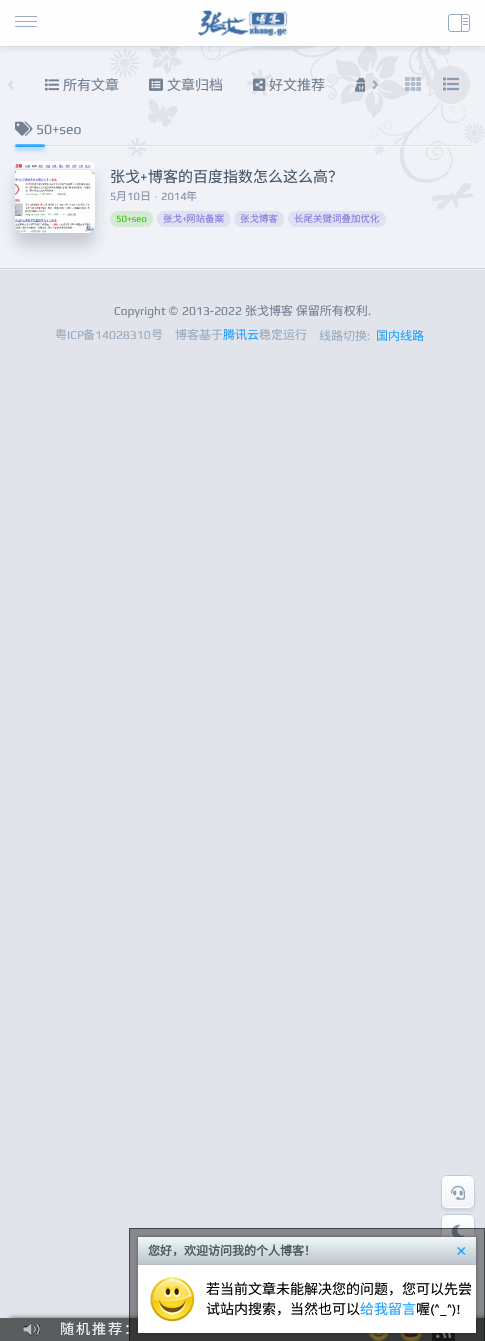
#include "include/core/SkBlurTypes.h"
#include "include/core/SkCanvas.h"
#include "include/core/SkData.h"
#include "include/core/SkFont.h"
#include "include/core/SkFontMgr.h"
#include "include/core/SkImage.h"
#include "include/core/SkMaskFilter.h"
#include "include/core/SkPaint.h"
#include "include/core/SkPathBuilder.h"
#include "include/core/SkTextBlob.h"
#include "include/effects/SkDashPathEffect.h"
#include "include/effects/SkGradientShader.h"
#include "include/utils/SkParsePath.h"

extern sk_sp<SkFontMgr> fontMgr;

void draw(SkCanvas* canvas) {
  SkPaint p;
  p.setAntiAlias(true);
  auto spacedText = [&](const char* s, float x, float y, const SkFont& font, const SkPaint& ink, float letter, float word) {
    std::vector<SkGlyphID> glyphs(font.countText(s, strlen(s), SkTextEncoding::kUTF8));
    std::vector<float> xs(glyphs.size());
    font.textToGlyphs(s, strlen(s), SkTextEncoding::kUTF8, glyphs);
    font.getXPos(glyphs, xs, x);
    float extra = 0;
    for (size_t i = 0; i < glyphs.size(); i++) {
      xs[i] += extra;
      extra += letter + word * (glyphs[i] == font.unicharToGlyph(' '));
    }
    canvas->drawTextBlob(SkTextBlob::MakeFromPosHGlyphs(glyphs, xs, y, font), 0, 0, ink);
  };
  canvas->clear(SkColorSetRGB(225, 229, 235));
  p.setColor(SkColorSetRGB(240, 242, 247));
  canvas->drawRect(SkRect::MakeLTRB(0, 0, 485, 268), p);
  canvas->drawImageRect(SkImages::DeferredFromEncodedData(SkData::MakeFromFileName("images/1.png")), SkRect::MakeLTRB(110, 3, 485, 210), SkSamplingOptions());
  canvas->save();
  canvas->clipRect(SkRect::MakeLTRB(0, 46, 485, 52));
  p.setColor(SkColorSetARGB(20, 31, 45, 61));
  p.setMaskFilter(SkMaskFilter::MakeBlur(kNormal_SkBlurStyle, 3));
  canvas->drawRect(SkRect::MakeLTRB(0, 4, 485, 50), p);
  p.setMaskFilter(nullptr);
  canvas->restore();
  p.setColor(SkColorSetARGB(13, 64, 79, 93));
  canvas->drawRect(SkRect::MakeLTRB(0, 46, 485, 47), p);
  p.setColor(SkColorSetARGB(230, 255, 255, 255));
  canvas->drawRect(SkRect::MakeLTRB(0, 0, 485, 46), p);
  canvas->drawImageRect(SkImages::DeferredFromEncodedData(SkData::MakeFromFileName("images/2.png")), SkRect::MakeLTRB(197, 10, 288, 37), SkSamplingOptions());
  p.setColor(SkColorSetRGB(153, 169, 191));
  canvas->drawRoundRect(SkRect::MakeLTRB(15, 16, 37, 17), 0.5f, 0.5f, p);
  canvas->drawRoundRect(SkRect::MakeLTRB(15, 21, 37, 22), 0.5f, 0.5f, p);
  canvas->drawRoundRect(SkRect::MakeLTRB(15, 26, 37, 27), 0.5f, 0.5f, p);
  canvas->drawImageRect(SkImages::DeferredFromEncodedData(SkData::MakeFromFileName("images/3.png")), SkRect::MakeLTRB(448, 14, 470, 32), SkSamplingOptions());
  canvas->drawImageRect(SkImages::DeferredFromEncodedData(SkData::MakeFromFileName("images/4.png")), SkRect::MakeLTRB(7, 80, 14, 89), SkSamplingOptions());
  canvas->drawImageRect(SkImages::DeferredFromEncodedData(SkData::MakeFromFileName("images/5.png")), SkRect::MakeLTRB(45, 79, 59, 91), SkSamplingOptions());
  canvas->drawImageRect(SkImages::DeferredFromEncodedData(SkData::MakeFromFileName("images/6.png")), SkRect::MakeLTRB(149, 78, 163, 91), SkSamplingOptions());
  canvas->drawImageRect(SkImages::DeferredFromEncodedData(SkData::MakeFromFileName("images/7.png")), SkRect::MakeLTRB(253, 78, 266, 91), SkSamplingOptions());
  canvas->drawImageRect(SkImages::DeferredFromEncodedData(SkData::MakeFromFileName("images/8.png")), SkRect::MakeLTRB(355, 77, 365, 92), SkSamplingOptions());
  canvas->drawImageRect(SkImages::DeferredFromEncodedData(SkData::MakeFromFileName("images/9.png")), SkRect::MakeLTRB(372, 80, 379, 89), SkSamplingOptions());
  canvas->drawImageRect(SkImages::DeferredFromEncodedData(SkData::MakeFromFileName("images/10.png")), SkRect::MakeLTRB(405, 77, 421, 91), SkSamplingOptions());
  p.setColor(SkColorSetARGB(191, 255, 255, 255));
  canvas->drawPath(SkPathBuilder().moveTo(432, 85.5f).cubicTo(432, 89.5f, 433, 93.5f, 435, 96.5f).cubicTo(446, 112, 470.5f, 104.5f, 470, 85.5f).cubicTo(469.5f, 96, 461.5f, 104, 451, 104).cubicTo(440.5f, 104, 432.5f, 96, 432, 85.5f).close().detach(), p);
  p.setColor(SkColorSetRGB(226, 228, 234));
  canvas->drawCircle(451, 85, 19, p);
  canvas->drawImageRect(SkImages::DeferredFromEncodedData(SkData::MakeFromFileName("images/11.png")), SkRect::MakeLTRB(443, 77, 459, 91), SkSamplingOptions());
  p.setColor(SkColorSetARGB(128, 255, 255, 255));
  canvas->drawRect(SkRect::MakeLTRB(15, 146, 470, 147), p);
  p.setColor(SkColorSetRGB(216, 224, 234));
  canvas->drawRect(SkRect::MakeLTRB(15, 145, 470, 146), p);
  canvas->drawImageRect(SkImages::DeferredFromEncodedData(SkData::MakeFromFileName("images/12.png")), SkRect::MakeLTRB(15, 121, 33, 136), SkSamplingOptions());
  p.setColor(SkColorSetARGB(128, 32, 160, 255));
  p.setMaskFilter(SkMaskFilter::MakeBlur(kNormal_SkBlurStyle, 2));
  canvas->drawRoundRect(SkRect::MakeLTRB(15, 147, 45, 150), 1.5f, 1.5f, p);
  p.setMaskFilter(nullptr);
  {
    const SkColor colors[] = {SkColorSetRGB(88, 183, 255), SkColorSetRGB(32, 160, 255)};
    const float stops[] = {0.3f, 0.7f};
    const SkPoint ends[] = {{30, 144}, {30, 147}};
    p.setShader(SkGradientShader::MakeLinear(ends, colors, stops, 2, SkTileMode::kClamp));
    p.setAlpha(255);
  }
  canvas->drawRoundRect(SkRect::MakeLTRB(15, 144, 45, 147), 1.5f, 1.5f, p);
  p.setShader(nullptr);
  p.setColor(SkColorSetRGB(240, 242, 245));
  canvas->drawRect(SkRect::MakeLTRB(0, 269, 485, 270), p);
  p.setColor(SkColorSetRGB(211, 216, 224));
  canvas->drawRect(SkRect::MakeLTRB(0, 268, 485, 269), p);
  p.setColor(SkColorSetARGB(51, 31, 45, 61));
  p.setMaskFilter(SkMaskFilter::MakeBlur(kNormal_SkBlurStyle, 7.5f));
  canvas->drawRoundRect(SkRect::MakeLTRB(15, 174, 95, 246), 8, 8, p);
  p.setMaskFilter(nullptr);
  canvas->drawImageRect(SkImages::DeferredFromEncodedData(SkData::MakeFromFileName("images/13.png")), SkRect::MakeLTRB(15, 161, 95, 233), SkSamplingOptions());
  {
    const SkColor colors[] = {SkColorSetARGB(0, 240, 242, 247), SkColorSetRGB(240, 242, 247)};
    const float stops[] = {0, 1};
    const SkPoint ends[] = {{450, 217}, {470, 217}};
    p.setShader(SkGradientShader::MakeLinear(ends, colors, stops, 2, SkTileMode::kClamp));
    p.setAlpha(255);
  }
  canvas->drawRect(SkRect::MakeLTRB(455, 207, 458, 210), p);
  canvas->drawRect(SkRect::MakeLTRB(455, 207, 458, 210), p);
  p.setShader(nullptr);
  p.setColor(SkColorSetARGB(26, 31, 45, 62));
  p.setMaskFilter(SkMaskFilter::MakeBlur(kNormal_SkBlurStyle, 1));
  canvas->drawRoundRect(SkRect::MakeLTRB(441, 1177, 475, 1211), 6, 6, p);
  p.setMaskFilter(nullptr);
  canvas->save();
  canvas->clipPath(SkPathBuilder().moveTo(447, 1175).lineTo(469, 1175).cubicTo(472.5f, 1175, 475, 1177.5f, 475, 1181).lineTo(475, 1203).cubicTo(475, 1206.5f, 472.5f, 1209, 469, 1209).lineTo(447, 1209).cubicTo(443.5f, 1209, 441, 1206.5f, 441, 1203).lineTo(441, 1181).cubicTo(441, 1177.5f, 443.5f, 1175, 447, 1175).close().detach(), true);
  {
    const SkColor colors[] = {SK_ColorWHITE, SkColorSetRGB(240, 242, 244)};
    const float stops[] = {0, 1};
    const SkPoint ends[] = {{458, 1144}, {458, 1176}};
    p.setShader(SkGradientShader::MakeLinear(ends, colors, stops, 2, SkTileMode::kClamp));
    p.setAlpha(255);
  }
  canvas->drawRect(SkRect::MakeLTRB(441, 1175, 475, 1176), p);
  {
    const SkColor colors[] = {SK_ColorWHITE, SkColorSetRGB(240, 242, 244)};
    const float stops[] = {0, 1};
    const SkPoint ends[] = {{458, 1176}, {458, 1208}};
    p.setShader(SkGradientShader::MakeLinear(ends, colors, stops, 2, SkTileMode::kClamp));
    p.setAlpha(255);
  }
  canvas->drawRect(SkRect::MakeLTRB(441, 1176, 475, 1208), p);
  {
    const SkColor colors[] = {SK_ColorWHITE, SkColorSetRGB(240, 242, 244)};
    const float stops[] = {0, 1};
    const SkPoint ends[] = {{458, 1208}, {458, 1240}};
    p.setShader(SkGradientShader::MakeLinear(ends, colors, stops, 2, SkTileMode::kClamp));
    p.setAlpha(255);
  }
  canvas->drawRect(SkRect::MakeLTRB(441, 1208, 475, 1209), p);
  canvas->restore();
  p.setStyle(SkPaint::kStroke_Style);
  p.setStrokeWidth(1);
  p.setShader(nullptr);
  p.setColor(SK_ColorWHITE);
  canvas->drawRoundRect(SkRect::MakeLTRB(442.5f, 1176.5f, 473.5f, 1207.5f), 4.5f, 4.5f, p);
  p.setColor(SkColorSetARGB(51, 0, 40, 83));
  canvas->drawRoundRect(SkRect::MakeLTRB(441.5f, 1175.5f, 474.5f, 1208.5f), 5.5f, 5.5f, p);
  canvas->drawImageRect(SkImages::DeferredFromEncodedData(SkData::MakeFromFileName("images/14.png")), SkRect::MakeLTRB(451, 1185, 465, 1200), SkSamplingOptions());
  p.setStyle(SkPaint::kFill_Style);
  p.setColor(SkColorSetARGB(26, 31, 45, 62));
  p.setMaskFilter(SkMaskFilter::MakeBlur(kNormal_SkBlurStyle, 1));
  canvas->drawRoundRect(SkRect::MakeLTRB(441, 1216, 475, 1250), 6, 6, p);
  p.setMaskFilter(nullptr);
  canvas->save();
  canvas->clipPath(SkPathBuilder().moveTo(447, 1214).lineTo(469, 1214).cubicTo(472.5f, 1214, 475, 1216.5f, 475, 1220).lineTo(475, 1242).cubicTo(475, 1245.5f, 472.5f, 1248, 469, 1248).lineTo(447, 1248).cubicTo(443.5f, 1248, 441, 1245.5f, 441, 1242).lineTo(441, 1220).cubicTo(441, 1216.5f, 443.5f, 1214, 447, 1214).close().detach(), true);
  {
    const SkColor colors[] = {SK_ColorWHITE, SkColorSetRGB(240, 242, 244)};
    const float stops[] = {0, 1};
    const SkPoint ends[] = {{458, 1183}, {458, 1215}};
    p.setShader(SkGradientShader::MakeLinear(ends, colors, stops, 2, SkTileMode::kClamp));
    p.setAlpha(255);
  }
  canvas->drawRect(SkRect::MakeLTRB(441, 1214, 475, 1215), p);
  {
    const SkColor colors[] = {SK_ColorWHITE, SkColorSetRGB(240, 242, 244)};
    const float stops[] = {0, 1};
    const SkPoint ends[] = {{458, 1215}, {458, 1247}};
    p.setShader(SkGradientShader::MakeLinear(ends, colors, stops, 2, SkTileMode::kClamp));
    p.setAlpha(255);
  }
  canvas->drawRect(SkRect::MakeLTRB(441, 1215, 475, 1237), p);
  canvas->restore();
  p.setStyle(SkPaint::kStroke_Style);
  p.setShader(nullptr);
  p.setColor(SK_ColorWHITE);
  canvas->drawRoundRect(SkRect::MakeLTRB(442.5f, 1215.5f, 473.5f, 1246.5f), 4.5f, 4.5f, p);
  p.setColor(SkColorSetARGB(51, 0, 40, 83));
  canvas->drawRoundRect(SkRect::MakeLTRB(441.5f, 1214.5f, 474.5f, 1247.5f), 5.5f, 5.5f, p);
  canvas->drawImageRect(SkImages::DeferredFromEncodedData(SkData::MakeFromFileName("images/15.png")), SkRect::MakeLTRB(451, 1224, 465, 1237), SkSamplingOptions());
  p.setStyle(SkPaint::kFill_Style);
  p.setColor(SkColorSetRGB(90, 92, 94));
  p.setMaskFilter(SkMaskFilter::MakeBlur(kNormal_SkBlurStyle, 2.5f));
  canvas->drawRect(SkRect::MakeLTRB(10, 1318, 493, 1341), p);
  p.setMaskFilter(nullptr);
  canvas->drawRect(SkRect::MakeLTRB(0, 1318, 485, 1341), p);
  canvas->drawImageRect(SkImages::DeferredFromEncodedData(SkData::MakeFromFileName("images/18.png")), SkRect::MakeLTRB(368, 1333, 389, 1341), SkSamplingOptions());
  canvas->drawImageRect(SkImages::DeferredFromEncodedData(SkData::MakeFromFileName("images/19.png")), SkRect::MakeLTRB(400, 1333, 422, 1341), SkSamplingOptions());
  canvas->drawImageRect(SkImages::DeferredFromEncodedData(SkData::MakeFromFileName("images/20.png")), SkRect::MakeLTRB(432, 1333, 455, 1341), SkSamplingOptions());
  p.setStyle(SkPaint::kStroke_Style);
  p.setColor(SkColorSetARGB(179, 0, 0, 0));
  canvas->drawRect(SkRect::MakeLTRB(129.5f, 1228.5f, 484.5f, 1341.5f), p);
  p.setStyle(SkPaint::kFill_Style);
  p.setColor(SkColorSetRGB(135, 137, 141));
  canvas->drawRect(SkRect::MakeLTRB(130, 1229, 138, 1237), p);
  p.setColor(SkColorSetARGB(102, 0, 0, 0));
  canvas->drawRect(SkRect::MakeLTRB(138, 1229, 476, 1237), p);
  p.setColor(SkColorSetRGB(135, 137, 141));
  canvas->drawRect(SkRect::MakeLTRB(476, 1229, 484, 1237), p);
  p.setColor(SkColorSetARGB(102, 0, 0, 0));
  canvas->drawRect(SkRect::MakeLTRB(130, 1237, 138, 1333), p);
  p.setColor(SK_ColorWHITE);
  canvas->drawRect(SkRect::MakeLTRB(138, 1265, 476, 1333), p);
  canvas->save();
  canvas->clipPath(SkPathBuilder(SkPathFillType::kEvenOdd).moveTo(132, 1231).lineTo(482, 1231).lineTo(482, 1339).lineTo(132, 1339).close().moveTo(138, 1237).lineTo(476, 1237).lineTo(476, 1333).lineTo(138, 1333).close().detach(), true);
  p.setColor(SkColorSetARGB(102, 0, 0, 0));
  p.setMaskFilter(SkMaskFilter::MakeBlur(kNormal_SkBlurStyle, 1.5f));
  canvas->drawRect(SkRect::MakeLTRB(138, 1237, 476, 1333), p);
  p.setMaskFilter(nullptr);
  canvas->restore();
  {
    const SkColor colors[] = {SkColorSetRGB(237, 245, 248), SkColorSetRGB(189, 198, 205)};
    const float stops[] = {0, 1};
    const SkPoint ends[] = {{138, 1238}, {138, 1264}};
    p.setShader(SkGradientShader::MakeLinear(ends, colors, stops, 2, SkTileMode::kClamp));
    p.setAlpha(255);
  }
  canvas->drawRect(SkRect::MakeLTRB(138, 1238, 476, 1264), p);
  p.setShader(nullptr);
  p.setColor(SkColorSetRGB(237, 245, 248));
  canvas->drawRect(SkRect::MakeLTRB(138, 1237, 476, 1238), p);
  p.setColor(SkColorSetRGB(182, 190, 197));
  canvas->drawRect(SkRect::MakeLTRB(138, 1264, 476, 1265), p);
  canvas->drawImageRect(SkImages::DeferredFromEncodedData(SkData::MakeFromFileName("images/16.png")), SkRect::MakeLTRB(150, 1277, 195, 1322), SkSamplingOptions());
  p.setColor(SkColorSetARGB(102, 0, 0, 0));
  canvas->drawRect(SkRect::MakeLTRB(476, 1237, 484, 1333), p);
  canvas->drawRect(SkRect::MakeLTRB(130, 1333, 138, 1341), p);
  canvas->drawRect(SkRect::MakeLTRB(138, 1333, 476, 1341), p);
  canvas->drawRect(SkRect::MakeLTRB(476, 1333, 484, 1341), p);
  canvas->drawImageRect(SkImages::DeferredFromEncodedData(SkData::MakeFromFileName("images/17.png")), SkRect::MakeLTRB(23, 1323, 40, 1336), SkSamplingOptions());
  SkFont font1(fontMgr->matchFamilyStyle("Noto Sans CJK SC", SkFontStyle::Normal()), 14);
  font1.setSubpixel(true);
  p.setColor(SkColorSetRGB(115, 129, 146));
  canvas->drawString("所有文章", 63, 90, font1, p);
  canvas->drawString("文章归档", 167, 90, font1, p);
  canvas->drawString("好文推荐", 269, 90, font1, p);
  SkFont font2(fontMgr->matchFamilyStyle("Play", SkFontStyle::Normal()), 14);
  font2.setSubpixel(true);
  canvas->drawString("50+seo", 36, 134, font2, p);
  SkFont font3(fontMgr->matchFamilyStyle("Noto Sans CJK SC", SkFontStyle::Normal()), 15);
  font3.setSubpixel(true);
  p.setColor(SkColorSetRGB(71, 86, 105));
  canvas->drawString("张戈", 110, 182, font3, p);
  SkFont font4(fontMgr->matchFamilyStyle("Play", SkFontStyle::Normal()), 15);
  font4.setSubpixel(true);
  canvas->drawString("+", 140, 182, font4, p);
  canvas->drawString("博客的百度指数怎么这么高？", 148, 182, font3, p);
  SkFont font5(fontMgr->matchFamilyStyle("Play", SkFontStyle::Normal()), 11);
  font5.setSubpixel(true);
  p.setColor(SkColorSetRGB(132, 146, 166));
  canvas->drawString("5", 110, 200, font5, p);
  SkFont font6(fontMgr->matchFamilyStyle("Noto Sans CJK SC", SkFontStyle::Normal()), 11);
  font6.setSubpixel(true);
  canvas->drawString("月", 116, 200, font6, p);
  canvas->drawString("10", 127, 200, font5, p);
  canvas->drawString("日", 140, 200, font6, p);
  SkFont font7(fontMgr->matchFamilyStyle("Liberation Sans", SkFontStyle::Normal()), 11);
  font7.setSubpixel(true);
  canvas->drawString("·", 154, 200, font7, p);
  canvas->drawString("2014", 161, 200, font5, p);
  canvas->drawString("年", 186, 200, font6, p);
  SkFont font8(fontMgr->matchFamilyStyle("Play", SkFontStyle::Normal()), 9.5f);
  font8.setSubpixel(true);
  p.setColor(SkColorSetRGB(57, 196, 8));
  canvas->drawString("50+seo", 116, 222, font8, p);
  p.setColor(SkColorSetARGB(38, 57, 196, 8));
  canvas->drawRoundRect(SkRect::MakeLTRB(110, 211, 153, 227), 8, 8, p);
  SkFont font9(fontMgr->matchFamilyStyle("Noto Sans CJK SC", SkFontStyle::Normal()), 9.5f);
  font9.setSubpixel(true);
  p.setColor(SkColorSetRGB(131, 122, 220));
  canvas->drawString("张戈", 163, 222, font9, p);
  canvas->drawString("+", 182, 222, font8, p);
  canvas->drawString("网站备案", 186, 222, font9, p);
  p.setColor(SkColorSetARGB(38, 131, 122, 220));
  canvas->drawRoundRect(SkRect::MakeLTRB(157, 211, 231, 227), 8, 8, p);
  p.setColor(SkColorSetRGB(131, 122, 220));
  canvas->drawString("张戈博客", 240, 222, font9, p);
  p.setColor(SkColorSetARGB(38, 131, 122, 220));
  canvas->drawRoundRect(SkRect::MakeLTRB(234, 211, 284, 227), 8, 8, p);
  p.setColor(SkColorSetRGB(131, 122, 220));
  canvas->drawString("长尾关键词叠加优化", 294, 222, font9, p);
  p.setColor(SkColorSetARGB(38, 131, 122, 220));
  canvas->drawRoundRect(SkRect::MakeLTRB(288, 211, 386, 227), 8, 8, p);
  SkFont font10(fontMgr->matchFamilyStyle("Play", SkFontStyle::Normal()), 12);
  font10.setSubpixel(true);
  p.setColor(SkColorSetRGB(115, 129, 146));
  canvas->drawString("Copyright", 114, 315, font10, p);
  SkFont font11(fontMgr->matchFamilyStyle("Liberation Sans", SkFontStyle::Normal()), 12);
  font11.setSubpixel(true);
  canvas->drawString("©", 169, 315, font11, p);
  canvas->drawString("2013-2022", 182, 315, font10, p);
  SkFont font12(fontMgr->matchFamilyStyle("Noto Sans CJK SC", SkFontStyle::Normal()), 12);
  font12.setSubpixel(true);
  canvas->drawString("张戈博客 保留所有权利", 245, 315, font12, p);
  canvas->drawString(".", 368, 315, font10, p);
  p.setColor(SkColorSetRGB(153, 169, 191));
  canvas->drawString("粤", 55, 339, font12, p);
  canvas->drawString("ICP", 67, 339, font10, p);
  canvas->drawString("备", 83, 339, font12, p);
  canvas->drawString("14028310", 95, 339, font10, p);
  canvas->drawString("号", 151, 339, font12, p);
  canvas->drawString("博客基于", 175, 339, font12, p);
  p.setColor(SkColorSetRGB(32, 160, 255));
  canvas->drawString("腾讯云", 223, 339, font12, p);
  p.setColor(SkColorSetRGB(153, 169, 191));
  canvas->drawString("稳定运行", 259, 339, font12, p);
  canvas->drawString("线路切换", 319, 340, font12, p);
  canvas->drawString(":", 367, 340, font10, p);
  p.setColor(SkColorSetRGB(32, 160, 255));
  canvas->drawString("国内线路", 376, 340, font12, p);
  SkFont font13(fontMgr->matchFamilyStyle("Noto Sans CJK SC", SkFontStyle::Bold()), 12);
  font13.setSubpixel(true);
  p.setColor(SkColorSetRGB(76, 90, 95));
  canvas->drawString("您好，欢迎访问我的个人博客！", 148, 1255, font13, p);
  SkFont font14(fontMgr->matchFamilyStyle("Liberation Sans", SkFontStyle::Normal()), 18);
  font14.setSubpixel(true);
  p.setColor(SkColorSetRGB(32, 160, 255));
  canvas->drawString("×", 456, 1257, font14, p);
  p.setColor(SK_ColorBLACK);
  canvas->drawString("若当前文章未能解决您的问题，您可以先尝", 206, 1294, font1, p);
  canvas->drawString("试站内搜索，当然也可以", 206, 1314, font1, p);
  p.setColor(SkColorSetRGB(32, 160, 255));
  canvas->drawString("给我留言", 360, 1314, font1, p);
  p.setColor(SK_ColorBLACK);
  canvas->drawString("喔", 416, 1314, font1, p);
  canvas->drawString("(^_^)!", 430, 1314, font2, p);
  p.setColor(SkColorSetRGB(243, 245, 247));
  spacedText("随机推荐：", 60, 1334, font1, p, 2, 0);
}
